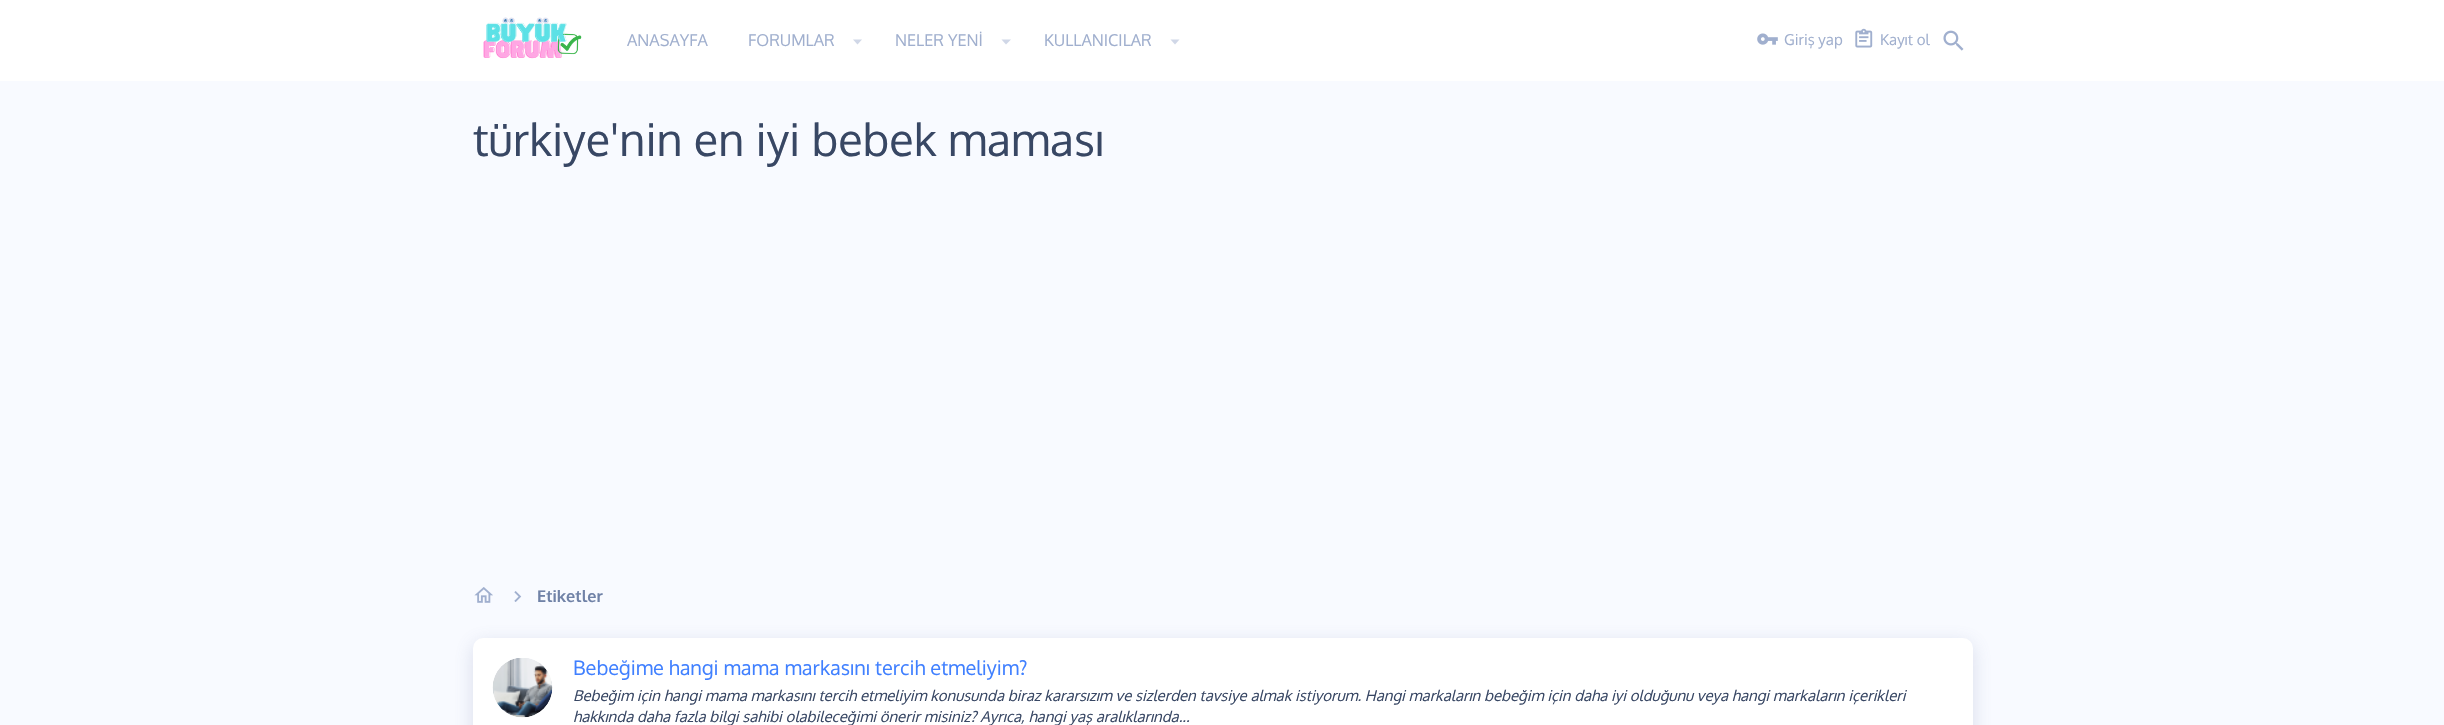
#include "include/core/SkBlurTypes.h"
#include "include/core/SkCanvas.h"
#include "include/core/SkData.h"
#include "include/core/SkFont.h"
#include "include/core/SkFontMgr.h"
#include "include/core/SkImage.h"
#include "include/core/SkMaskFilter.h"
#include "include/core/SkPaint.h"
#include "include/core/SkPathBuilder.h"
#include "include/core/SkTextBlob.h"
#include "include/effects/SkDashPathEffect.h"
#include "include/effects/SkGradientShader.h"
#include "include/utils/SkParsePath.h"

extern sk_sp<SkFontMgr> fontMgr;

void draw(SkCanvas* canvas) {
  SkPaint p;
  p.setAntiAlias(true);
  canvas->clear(SkColorSetRGB(248, 250, 255));
  p.setColor(SK_ColorWHITE);
  canvas->drawRect(SkRect::MakeLTRB(0, 0, 2444, 81), p);
  canvas->drawImageRect(SkImages::DeferredFromEncodedData(SkData::MakeFromFileName("images/1.png")), SkRect::MakeLTRB(483, 17, 582, 59), SkSamplingOptions());
  p.setColor(SkColorSetRGB(208, 215, 231));
  canvas->drawPath(SkPathBuilder().moveTo(853, 39.5f).lineTo(857.5f, 44.5f).lineTo(862, 39.5f).close().detach(), p);
  canvas->drawPath(SkPathBuilder().moveTo(1001.5f, 39.5f).lineTo(1006, 44.5f).lineTo(1011, 39.5f).close().detach(), p);
  canvas->drawPath(SkPathBuilder().moveTo(1170.5f, 39.5f).lineTo(1175, 44.5f).lineTo(1179.5f, 39.5f).close().detach(), p);
  canvas->drawImageRect(SkImages::DeferredFromEncodedData(SkData::MakeFromFileName("images/2.png")), SkRect::MakeLTRB(1757, 33, 1778, 45), SkSamplingOptions());
  canvas->drawImageRect(SkImages::DeferredFromEncodedData(SkData::MakeFromFileName("images/3.png")), SkRect::MakeLTRB(1855, 28, 1873, 48), SkSamplingOptions());
  canvas->drawImageRect(SkImages::DeferredFromEncodedData(SkData::MakeFromFileName("images/4.png")), SkRect::MakeLTRB(1943, 30, 1964, 51), SkSamplingOptions());
  canvas->drawImageRect(SkImages::DeferredFromEncodedData(SkData::MakeFromFileName("images/5.png")), SkRect::MakeLTRB(474, 587, 493, 603), SkSamplingOptions());
  canvas->drawImageRect(SkImages::DeferredFromEncodedData(SkData::MakeFromFileName("images/6.png")), SkRect::MakeLTRB(514, 591, 522, 602), SkSamplingOptions());
  p.setColor(SkColorSetARGB(51, 88, 106, 153));
  p.setMaskFilter(SkMaskFilter::MakeBlur(kNormal_SkBlurStyle, 9.5f));
  canvas->drawRoundRect(SkRect::MakeLTRB(473, 643, 1973, 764), 10, 10, p);
  p.setMaskFilter(nullptr);
  p.setColor(SK_ColorWHITE);
  canvas->drawRoundRect(SkRect::MakeLTRB(473, 638, 1973, 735), 10, 10, p);
  canvas->drawImageRect(SkImages::DeferredFromEncodedData(SkData::MakeFromFileName("images/7.png")), SkRect::MakeLTRB(492, 658, 553, 718), SkSamplingOptions());
  SkFont font1(fontMgr->matchFamilyStyle("Oxygen", SkFontStyle::Normal()), 16.25f);
  font1.setSubpixel(true);
  p.setColor(SkColorSetRGB(160, 175, 206));
  canvas->drawString("ANASAYFA", 627, 46, font1, p);
  canvas->drawString("FORUMLAR", 748, 46, font1, p);
  canvas->drawString("NELER YENİ", 895, 46, font1, p);
  canvas->drawString("KULLANICILAR", 1044, 46, font1, p);
  SkFont font2(fontMgr->matchFamilyStyle("Oxygen", SkFontStyle::Normal()), 15);
  font2.setSubpixel(true);
  canvas->drawString("Giriş yap", 1784, 45, font2, p);
  canvas->drawString("Kayıt ol", 1880, 45, font2, p);
  SkFont font3(fontMgr->matchFamilyStyle("Oxygen", SkFontStyle::Normal()), 45);
  font3.setSubpixel(true);
  p.setColor(SkColorSetRGB(56, 71, 100));
  canvas->drawString("türkiye'nin en iyi bebek maması", 473, 156, font3, p);
  SkFont font4(fontMgr->matchFamilyStyle("Oxygen", SkFontStyle::Bold()), 16.25f);
  font4.setSubpixel(true);
  p.setColor(SkColorSetRGB(112, 130, 167));
  canvas->drawString("Etiketler", 537, 602, font4, p);
  SkFont font5(fontMgr->matchFamilyStyle("Oxygen", SkFontStyle::Normal()), 20);
  font5.setSubpixel(true);
  p.setColor(SkColorSetRGB(64, 128, 255));
  canvas->drawString("Bebeğime hangi mama markasını tercih etmeliyim?", 573, 675, font5, p);
  SkFont font6(fontMgr->matchFamilyStyle("Oxygen", SkFontStyle::Italic()), 15);
  font6.setSubpixel(true);
  p.setColor(SkColorSetRGB(56, 71, 100));
  canvas->drawString("Bebeğim için hangi mama markasını tercih etmeliyim konusunda biraz kararsızım ve sizlerden tavsiye almak istiyorum. Hangi markaların bebeğim için daha iyi olduğunu veya hangi markaların içerikleri", 573, 701, font6, p);
  canvas->drawString("hakkında daha fazla bilgi sahibi olabileceğimi önerir misiniz? Ayrıca, hangi yaş aralıklarında...", 573, 722, font6, p);
}
